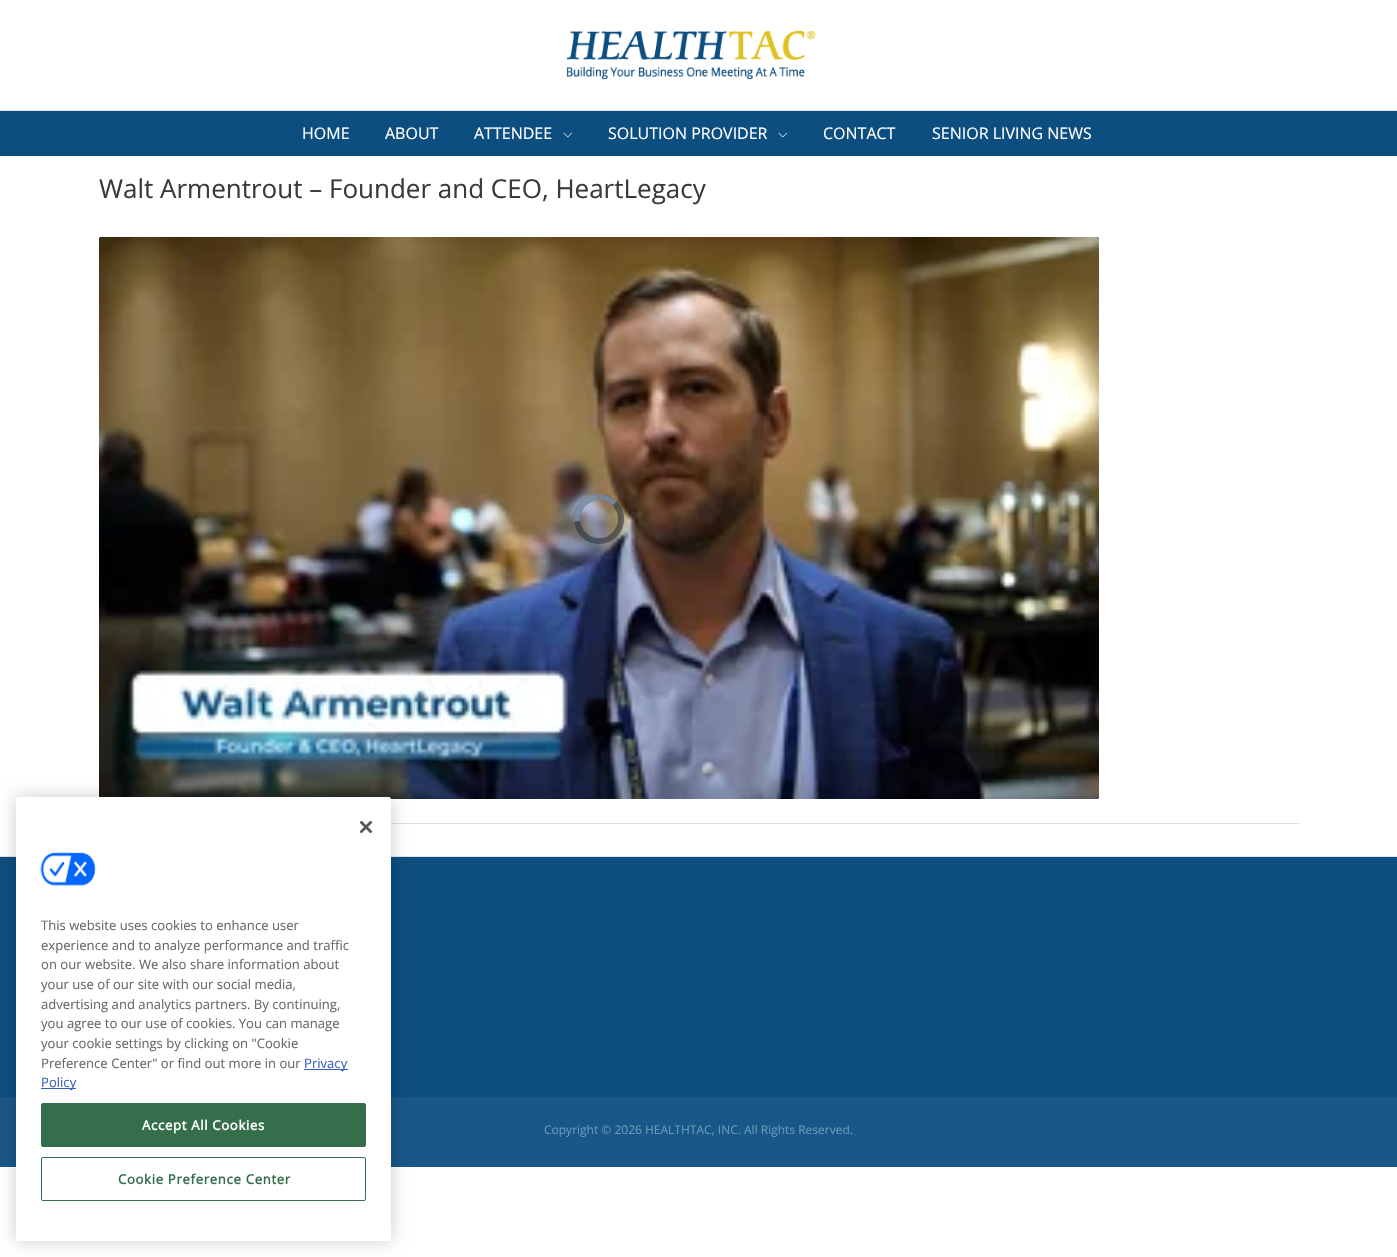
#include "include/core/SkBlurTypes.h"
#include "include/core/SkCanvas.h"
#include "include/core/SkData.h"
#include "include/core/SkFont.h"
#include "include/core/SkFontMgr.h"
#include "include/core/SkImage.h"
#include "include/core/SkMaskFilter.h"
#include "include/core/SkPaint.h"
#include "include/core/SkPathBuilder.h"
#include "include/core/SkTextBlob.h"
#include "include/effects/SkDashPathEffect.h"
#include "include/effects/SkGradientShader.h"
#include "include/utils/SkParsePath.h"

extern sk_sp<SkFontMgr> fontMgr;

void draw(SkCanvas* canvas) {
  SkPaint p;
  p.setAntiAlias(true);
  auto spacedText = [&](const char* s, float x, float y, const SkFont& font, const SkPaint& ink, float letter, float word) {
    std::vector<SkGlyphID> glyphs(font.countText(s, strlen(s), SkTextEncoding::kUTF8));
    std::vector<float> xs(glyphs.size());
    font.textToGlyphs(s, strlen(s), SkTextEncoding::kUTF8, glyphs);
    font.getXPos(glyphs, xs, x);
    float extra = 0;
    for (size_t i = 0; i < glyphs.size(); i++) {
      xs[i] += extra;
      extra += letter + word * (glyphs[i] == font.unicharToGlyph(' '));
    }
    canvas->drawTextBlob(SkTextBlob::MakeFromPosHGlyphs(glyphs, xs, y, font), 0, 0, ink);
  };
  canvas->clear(SK_ColorWHITE);
  p.setColor(SkColorSetRGB(229, 229, 229));
  canvas->drawRect(SkRect::MakeLTRB(0, 110, 1397, 111), p);
  canvas->drawImageRect(SkImages::DeferredFromEncodedData(SkData::MakeFromFileName("images/1.png")), SkRect::MakeLTRB(566, 30, 816, 80), SkSamplingOptions());
  p.setColor(SkColorSetRGB(13, 78, 128));
  canvas->drawRect(SkRect::MakeLTRB(0, 111, 1397, 156), p);
  canvas->drawImageRect(SkImages::DeferredFromEncodedData(SkData::MakeFromFileName("images/2.png")), SkRect::MakeLTRB(563, 132, 572, 138), SkSamplingOptions());
  canvas->drawImageRect(SkImages::DeferredFromEncodedData(SkData::MakeFromFileName("images/2.png")), SkRect::MakeLTRB(778, 132, 787, 138), SkSamplingOptions());
  canvas->drawImageRect(SkImages::DeferredFromEncodedData(SkData::MakeFromFileName("images/3.png")), SkRect::MakeLTRB(99, 237, 1099, 799), SkSamplingOptions());
  p.setColor(SkColorSetRGB(221, 221, 221));
  canvas->drawRect(SkRect::MakeLTRB(391, 823, 1299, 824), p);
  p.setColor(SkColorSetRGB(13, 78, 128));
  canvas->drawRect(SkRect::MakeLTRB(0, 857, 1397, 1097), p);
  p.setColor(SkColorSetRGB(229, 229, 229));
  canvas->drawRect(SkRect::MakeLTRB(0, 856, 1397, 857), p);
  p.setColor(SkColorSetRGB(25, 87, 136));
  canvas->drawRect(SkRect::MakeLTRB(0, 1097, 1397, 1167), p);
  p.setColor(SkColorSetARGB(51, 0, 0, 0));
  p.setMaskFilter(SkMaskFilter::MakeBlur(kNormal_SkBlurStyle, 9));
  canvas->drawRoundRect(SkRect::MakeLTRB(16, 797, 391, 1241), 2.5f, 2.5f, p);
  p.setMaskFilter(nullptr);
  p.setColor(SK_ColorWHITE);
  canvas->drawRoundRect(SkRect::MakeLTRB(16, 797, 391, 1241), 2.5f, 2.5f, p);
  canvas->drawImageRect(SkImages::DeferredFromEncodedData(SkData::MakeFromFileName("images/4.png")), SkRect::MakeLTRB(360, 821, 372, 833), SkSamplingOptions());
  canvas->drawImageRect(SkImages::DeferredFromEncodedData(SkData::MakeFromFileName("images/5.png")), SkRect::MakeLTRB(40, 852, 96, 886), SkSamplingOptions());
  p.setColor(SkColorSetRGB(56, 96, 190));
  canvas->drawRect(SkRect::MakeLTRB(304, 1069, 348, 1070), p);
  canvas->drawRect(SkRect::MakeLTRB(41, 1088, 76, 1089), p);
  p.setColor(SkColorSetRGB(52, 110, 74));
  canvas->drawRoundRect(SkRect::MakeLTRB(41.5f, 1103.5f, 365.5f, 1146.5f), 1.5f, 1.5f, p);
  p.setStyle(SkPaint::kStroke_Style);
  p.setStrokeWidth(1);
  canvas->drawRoundRect(SkRect::MakeLTRB(41.5f, 1103.5f, 365.5f, 1146.5f), 1.5f, 1.5f, p);
  canvas->drawRoundRect(SkRect::MakeLTRB(41.5f, 1157.5f, 365.5f, 1200.5f), 1.5f, 1.5f, p);
  SkFont font1(fontMgr->matchFamilyStyle("Open Sans", SkFontStyle::Normal()), 16);
  font1.setSubpixel(true);
  p.setStyle(SkPaint::kFill_Style);
  p.setColor(SK_ColorWHITE);
  canvas->drawString("HOME", 302, 139, font1, p);
  canvas->drawString("ABOUT", 385, 139, font1, p);
  canvas->drawString("ATTENDEE", 474, 139, font1, p);
  canvas->drawString("SOLUTION PROVIDER", 608, 139, font1, p);
  canvas->drawString("CONTACT", 823, 139, font1, p);
  canvas->drawString("SENIOR LIVING NEWS", 932, 139, font1, p);
  SkFont font2(fontMgr->matchFamilyStyle("Open Sans", SkFontStyle::Normal()), 26);
  font2.setSubpixel(true);
  p.setColor(SkColorSetRGB(58, 58, 58));
  canvas->drawString("Walt Armentrout – Founder and CEO, HeartLegacy", 99, 198, font2, p);
  SkFont font3(fontMgr->matchFamilyStyle("Open Sans", SkFontStyle::Normal()), 12);
  font3.setSubpixel(true);
  p.setColor(SkColorSetRGB(105, 155, 186));
  canvas->drawString("Copyright © 2026 HEALTHTAC, INC. All Rights Reserved.", 544, 1134, font3, p);
  SkFont font4(fontMgr->matchFamilyStyle("Open Sans", SkFontStyle::Normal()), 13.1f);
  font4.setSubpixel(true);
  p.setColor(SkColorSetRGB(105, 105, 105));
  canvas->drawString("This website uses cookies to enhance user", 41, 930, font4, p);
  canvas->drawString("experience and to analyze performance and traffic", 41, 950, font4, p);
  canvas->drawString("on our website. We also share information about", 41, 969, font4, p);
  canvas->drawString("your use of our site with our social media,", 41, 989, font4, p);
  canvas->drawString("advertising and analytics partners. By continuing,", 41, 1009, font4, p);
  canvas->drawString("you agree to our use of cookies. You can manage", 41, 1028, font4, p);
  canvas->drawString("your cookie settings by clicking on \"Cookie", 41, 1048, font4, p);
  canvas->drawString("Preference Center\" or find out more in our", 41, 1068, font4, p);
  p.setColor(SkColorSetRGB(56, 96, 190));
  canvas->drawString("Privacy", 304, 1068, font4, p);
  canvas->drawString("Policy", 41, 1087, font4, p);
  SkFont font5(fontMgr->matchFamilyStyle("Open Sans", SkFontStyle::Bold()), 13.1f);
  font5.setSubpixel(true);
  p.setColor(SK_ColorWHITE);
  spacedText("Accept All Cookies", 142, 1130, font5, p, 0.7f, 0);
  p.setColor(SkColorSetRGB(52, 110, 74));
  spacedText("Cookie Preference Center", 118, 1184, font5, p, 0.7f, 0);
}
